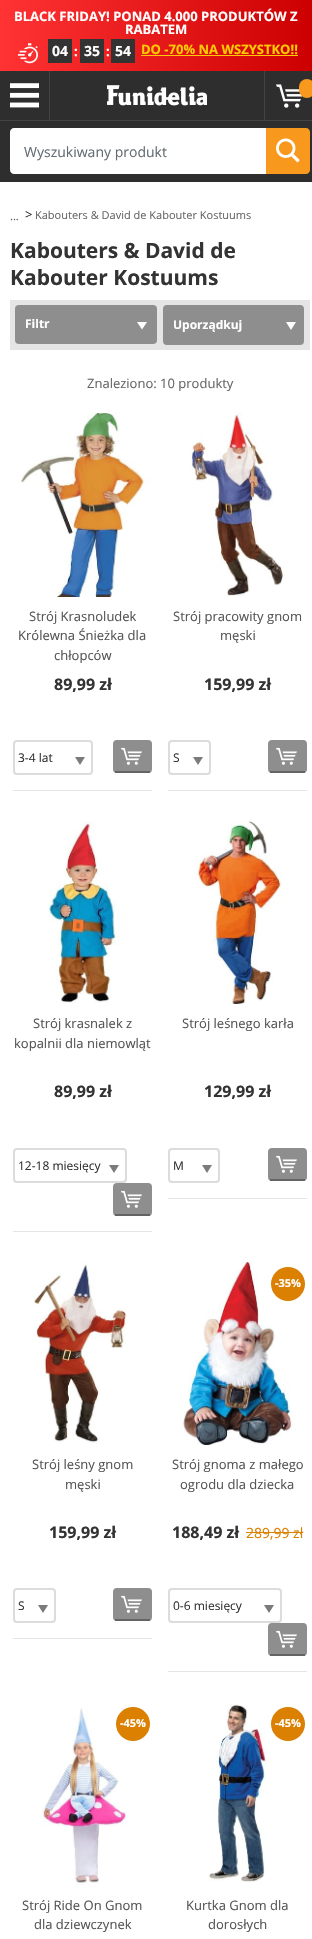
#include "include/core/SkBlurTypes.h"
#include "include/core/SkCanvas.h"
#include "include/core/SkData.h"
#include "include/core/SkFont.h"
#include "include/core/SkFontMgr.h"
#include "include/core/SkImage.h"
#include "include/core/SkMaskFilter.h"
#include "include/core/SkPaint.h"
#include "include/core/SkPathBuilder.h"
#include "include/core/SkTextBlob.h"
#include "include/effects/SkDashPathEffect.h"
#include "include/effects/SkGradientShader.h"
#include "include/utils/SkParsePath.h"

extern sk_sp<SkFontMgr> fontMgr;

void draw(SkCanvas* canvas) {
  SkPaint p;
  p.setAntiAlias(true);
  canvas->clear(SK_ColorWHITE);
  p.setColor(SkColorSetRGB(46, 46, 46));
  canvas->drawRect(SkRect::MakeLTRB(0, 71, 312, 182), p);
  {
    const SkColor colors[] = {SkColorSetRGB(255, 51, 51), SkColorSetRGB(204, 0, 0)};
    const float stops[] = {0, 1};
    const SkPoint ends[] = {{0, 36}, {312, 35}};
    p.setShader(SkGradientShader::MakeLinear(ends, colors, stops, 2, SkTileMode::kClamp));
    p.setAlpha(255);
  }
  canvas->drawRect(SkRect::MakeLTRB(0, 0, 312, 71), p);
  canvas->drawImageRect(SkImages::DeferredFromEncodedData(SkData::MakeFromFileName("images/1.png")), SkRect::MakeLTRB(18, 43, 38, 64), SkSamplingOptions());
  p.setShader(nullptr);
  p.setColor(SkColorSetRGB(51, 51, 51));
  canvas->drawRect(SkRect::MakeLTRB(48, 39, 72, 63), p);
  canvas->drawRect(SkRect::MakeLTRB(80, 39, 104, 63), p);
  canvas->drawRect(SkRect::MakeLTRB(111, 39, 135, 63), p);
  p.setColor(SkColorSetRGB(255, 204, 0));
  canvas->drawRect(SkRect::MakeLTRB(141, 55, 298, 56), p);
  p.setColor(SkColorSetRGB(68, 68, 68));
  canvas->drawRect(SkRect::MakeLTRB(49, 71, 50, 120), p);
  canvas->drawImageRect(SkImages::DeferredFromEncodedData(SkData::MakeFromFileName("images/2.png")), SkRect::MakeLTRB(10, 83, 39, 108), SkSamplingOptions());
  canvas->drawImageRect(SkImages::DeferredFromEncodedData(SkData::MakeFromFileName("images/3.png")), SkRect::MakeLTRB(107, 85, 207, 106), SkSamplingOptions());
  canvas->drawRect(SkRect::MakeLTRB(264, 71, 265, 120), p);
  canvas->drawImageRect(SkImages::DeferredFromEncodedData(SkData::MakeFromFileName("images/4.png")), SkRect::MakeLTRB(276, 84, 303, 108), SkSamplingOptions());
  p.setColor(SkColorSetRGB(248, 152, 29));
  canvas->drawRoundRect(SkRect::MakeLTRB(299, 79, 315, 98), 8, 8, p);
  p.setColor(SkColorSetRGB(68, 68, 68));
  canvas->drawRect(SkRect::MakeLTRB(0, 120, 312, 121), p);
  p.setColor(SK_ColorWHITE);
  canvas->drawPath(SkPathBuilder().moveTo(14, 129).lineTo(265, 129).lineTo(265, 173).lineTo(14, 173).cubicTo(12.5f, 173, 11, 171.5f, 11, 170).lineTo(11, 132).cubicTo(11, 130.5f, 12.5f, 129, 14, 129).close().detach(), p);
  p.setStyle(SkPaint::kStroke_Style);
  p.setStrokeWidth(2);
  canvas->drawPath(SkPathBuilder().moveTo(14, 129).lineTo(265, 129).lineTo(265, 173).lineTo(14, 173).cubicTo(12.5f, 173, 11, 171.5f, 11, 170).lineTo(11, 132).cubicTo(11, 130.5f, 12.5f, 129, 14, 129).close().detach(), p);
  p.setStyle(SkPaint::kFill_Style);
  p.setColor(SkColorSetRGB(248, 152, 29));
  canvas->drawPath(SkPathBuilder().moveTo(266, 128).lineTo(306, 128).cubicTo(308, 128, 310, 130, 310, 132).lineTo(310, 170).cubicTo(310, 172, 308, 174, 306, 174).lineTo(266, 174).close().detach(), p);
  canvas->drawImageRect(SkImages::DeferredFromEncodedData(SkData::MakeFromFileName("images/5.png")), SkRect::MakeLTRB(276, 138, 300, 163), SkSamplingOptions());
  p.setColor(SkColorSetRGB(229, 229, 229));
  canvas->drawRect(SkRect::MakeLTRB(10, 300, 310, 350), p);
  p.setColor(SkColorSetRGB(142, 142, 142));
  canvas->drawRoundRect(SkRect::MakeLTRB(15, 305, 157, 344), 4, 4, p);
  p.setColor(SK_ColorWHITE);
  canvas->drawPath(SkPathBuilder().moveTo(142, 329.5f).lineTo(137, 322).lineTo(147, 322).close().detach(), p);
  p.setColor(SkColorSetRGB(142, 142, 142));
  canvas->drawRoundRect(SkRect::MakeLTRB(164, 306, 303, 344), 3, 3, p);
  p.setStyle(SkPaint::kStroke_Style);
  canvas->drawRoundRect(SkRect::MakeLTRB(164, 306, 303, 344), 3, 3, p);
  p.setStyle(SkPaint::kFill_Style);
  p.setColor(SK_ColorWHITE);
  canvas->drawPath(SkPathBuilder().moveTo(286, 322).lineTo(296, 322).lineTo(291, 330).close().detach(), p);
  canvas->drawImageRect(SkImages::DeferredFromEncodedData(SkData::MakeFromFileName("images/6.png")), SkRect::MakeLTRB(10, 413, 155, 597), SkSamplingOptions());
  p.setColor(SkColorSetRGB(229, 229, 229));
  canvas->drawRect(SkRect::MakeLTRB(13, 790, 152, 791), p);
  p.setStyle(SkPaint::kStroke_Style);
  p.setColor(SkColorSetRGB(220, 220, 220));
  canvas->drawRoundRect(SkRect::MakeLTRB(14, 741, 92, 774), 3, 3, p);
  p.setStyle(SkPaint::kFill_Style);
  p.setColor(SkColorSetRGB(123, 123, 123));
  canvas->drawPath(SkPathBuilder().moveTo(75, 757).lineTo(85, 757).lineTo(80, 765).close().detach(), p);
  p.setColor(SkColorSetRGB(142, 142, 142));
  canvas->drawRoundRect(SkRect::MakeLTRB(113, 740, 152, 773), 4, 4, p);
  p.setColor(SkColorSetRGB(100, 100, 100));
  canvas->drawRect(SkRect::MakeLTRB(115, 771, 150, 773), p);
  canvas->drawImageRect(SkImages::DeferredFromEncodedData(SkData::MakeFromFileName("images/7.png")), SkRect::MakeLTRB(121, 747, 142, 765), SkSamplingOptions());
  canvas->drawImageRect(SkImages::DeferredFromEncodedData(SkData::MakeFromFileName("images/8.png")), SkRect::MakeLTRB(165, 413, 310, 597), SkSamplingOptions());
  p.setColor(SkColorSetRGB(229, 229, 229));
  canvas->drawRect(SkRect::MakeLTRB(168, 790, 307, 791), p);
  p.setStyle(SkPaint::kStroke_Style);
  p.setColor(SkColorSetRGB(220, 220, 220));
  canvas->drawRoundRect(SkRect::MakeLTRB(169, 741, 210, 774), 3, 3, p);
  p.setStyle(SkPaint::kFill_Style);
  p.setColor(SkColorSetRGB(123, 123, 123));
  canvas->drawPath(SkPathBuilder().moveTo(193, 757).lineTo(203, 757).lineTo(198, 765).close().detach(), p);
  p.setColor(SkColorSetRGB(142, 142, 142));
  canvas->drawRoundRect(SkRect::MakeLTRB(268, 740, 307, 773), 4, 4, p);
  p.setColor(SkColorSetRGB(100, 100, 100));
  canvas->drawRect(SkRect::MakeLTRB(270, 771, 305, 773), p);
  canvas->drawImageRect(SkImages::DeferredFromEncodedData(SkData::MakeFromFileName("images/7.png")), SkRect::MakeLTRB(276, 747, 297, 765), SkSamplingOptions());
  canvas->drawImageRect(SkImages::DeferredFromEncodedData(SkData::MakeFromFileName("images/9.png")), SkRect::MakeLTRB(10, 821, 155, 1004), SkSamplingOptions());
  p.setColor(SkColorSetRGB(229, 229, 229));
  canvas->drawRect(SkRect::MakeLTRB(13, 1231, 152, 1232), p);
  p.setStyle(SkPaint::kStroke_Style);
  p.setColor(SkColorSetRGB(220, 220, 220));
  canvas->drawRoundRect(SkRect::MakeLTRB(14, 1149, 126, 1182), 3, 3, p);
  p.setStyle(SkPaint::kFill_Style);
  p.setColor(SkColorSetRGB(123, 123, 123));
  canvas->drawPath(SkPathBuilder().moveTo(109, 1165).lineTo(119, 1165).lineTo(114, 1173).close().detach(), p);
  p.setColor(SkColorSetRGB(142, 142, 142));
  canvas->drawRoundRect(SkRect::MakeLTRB(113, 1183, 152, 1216), 4, 4, p);
  p.setColor(SkColorSetRGB(100, 100, 100));
  canvas->drawRect(SkRect::MakeLTRB(115, 1214, 150, 1216), p);
  canvas->drawImageRect(SkImages::DeferredFromEncodedData(SkData::MakeFromFileName("images/7.png")), SkRect::MakeLTRB(121, 1190, 142, 1208), SkSamplingOptions());
  canvas->drawImageRect(SkImages::DeferredFromEncodedData(SkData::MakeFromFileName("images/10.png")), SkRect::MakeLTRB(165, 821, 310, 1004), SkSamplingOptions());
  p.setColor(SkColorSetRGB(229, 229, 229));
  canvas->drawRect(SkRect::MakeLTRB(168, 1198, 307, 1199), p);
  p.setStyle(SkPaint::kStroke_Style);
  p.setColor(SkColorSetRGB(220, 220, 220));
  canvas->drawRoundRect(SkRect::MakeLTRB(169, 1149, 219, 1182), 3, 3, p);
  p.setStyle(SkPaint::kFill_Style);
  p.setColor(SkColorSetRGB(123, 123, 123));
  canvas->drawPath(SkPathBuilder().moveTo(202, 1165).lineTo(212, 1165).lineTo(207, 1173).close().detach(), p);
  p.setColor(SkColorSetRGB(142, 142, 142));
  canvas->drawRoundRect(SkRect::MakeLTRB(268, 1148, 307, 1181), 4, 4, p);
  p.setColor(SkColorSetRGB(100, 100, 100));
  canvas->drawRect(SkRect::MakeLTRB(270, 1179, 305, 1181), p);
  canvas->drawImageRect(SkImages::DeferredFromEncodedData(SkData::MakeFromFileName("images/7.png")), SkRect::MakeLTRB(276, 1155, 297, 1173), SkSamplingOptions());
  canvas->drawImageRect(SkImages::DeferredFromEncodedData(SkData::MakeFromFileName("images/11.png")), SkRect::MakeLTRB(10, 1262, 155, 1445), SkSamplingOptions());
  p.setColor(SkColorSetRGB(229, 229, 229));
  canvas->drawRect(SkRect::MakeLTRB(13, 1638, 152, 1639), p);
  p.setStyle(SkPaint::kStroke_Style);
  p.setColor(SkColorSetRGB(220, 220, 220));
  canvas->drawRoundRect(SkRect::MakeLTRB(14, 1589, 55, 1622), 3, 3, p);
  p.setStyle(SkPaint::kFill_Style);
  p.setColor(SkColorSetRGB(123, 123, 123));
  canvas->drawPath(SkPathBuilder().moveTo(38, 1605).lineTo(48, 1605).lineTo(43, 1613).close().detach(), p);
  p.setColor(SkColorSetRGB(142, 142, 142));
  canvas->drawRoundRect(SkRect::MakeLTRB(113, 1588, 152, 1621), 4, 4, p);
  p.setColor(SkColorSetRGB(100, 100, 100));
  canvas->drawRect(SkRect::MakeLTRB(115, 1619, 150, 1621), p);
  canvas->drawImageRect(SkImages::DeferredFromEncodedData(SkData::MakeFromFileName("images/7.png")), SkRect::MakeLTRB(121, 1595, 142, 1613), SkSamplingOptions());
  canvas->drawImageRect(SkImages::DeferredFromEncodedData(SkData::MakeFromFileName("images/12.png")), SkRect::MakeLTRB(165, 1262, 310, 1445), SkSamplingOptions());
  p.setColor(SkColorSetRGB(219, 128, 0));
  canvas->drawCircle(288, 1284, 17, p);
  canvas->drawRect(SkRect::MakeLTRB(246, 1532, 303, 1533), p);
  p.setColor(SkColorSetRGB(229, 229, 229));
  canvas->drawRect(SkRect::MakeLTRB(168, 1671, 307, 1672), p);
  p.setStyle(SkPaint::kStroke_Style);
  p.setColor(SkColorSetRGB(220, 220, 220));
  canvas->drawRoundRect(SkRect::MakeLTRB(169, 1589, 281, 1622), 3, 3, p);
  p.setStyle(SkPaint::kFill_Style);
  p.setColor(SkColorSetRGB(123, 123, 123));
  canvas->drawPath(SkPathBuilder().moveTo(264, 1605).lineTo(274, 1605).lineTo(269, 1613).close().detach(), p);
  p.setColor(SkColorSetRGB(142, 142, 142));
  canvas->drawRoundRect(SkRect::MakeLTRB(268, 1623, 307, 1656), 4, 4, p);
  p.setColor(SkColorSetRGB(100, 100, 100));
  canvas->drawRect(SkRect::MakeLTRB(270, 1654, 305, 1656), p);
  canvas->drawImageRect(SkImages::DeferredFromEncodedData(SkData::MakeFromFileName("images/7.png")), SkRect::MakeLTRB(276, 1630, 297, 1648), SkSamplingOptions());
  canvas->drawImageRect(SkImages::DeferredFromEncodedData(SkData::MakeFromFileName("images/13.png")), SkRect::MakeLTRB(10, 1702, 155, 1886), SkSamplingOptions());
  p.setColor(SkColorSetRGB(219, 128, 0));
  canvas->drawCircle(133, 1724, 17, p);
  canvas->drawImageRect(SkImages::DeferredFromEncodedData(SkData::MakeFromFileName("images/14.png")), SkRect::MakeLTRB(165, 1702, 310, 1886), SkSamplingOptions());
  canvas->drawCircle(288, 1724, 17, p);
  SkFont font1(fontMgr->matchFamilyStyle("Open Sans", SkFontStyle::Bold()), 13);
  font1.setSubpixel(true);
  p.setColor(SK_ColorWHITE);
  canvas->drawString("BLACK FRIDAY! PONAD 4.000 PRODUKTÓW Z", 14, 21, font1, p);
  canvas->drawString("RABATEM", 125, 34, font1, p);
  SkFont font2(fontMgr->matchFamilyStyle("Open Sans", SkFontStyle::Bold()), 14);
  font2.setSubpixel(true);
  canvas->drawString("04", 52, 56, font2, p);
  canvas->drawString(":", 74, 56, font1, p);
  canvas->drawString("35", 84, 56, font2, p);
  canvas->drawString(":", 106, 56, font1, p);
  canvas->drawString("54", 115, 56, font2, p);
  p.setColor(SkColorSetRGB(255, 204, 0));
  canvas->drawString("DO -70% NA WSZYSTKO!!", 141, 54, font1, p);
  SkFont font3(fontMgr->matchFamilyStyle("Open Sans", SkFontStyle::Normal()), 14);
  font3.setSubpixel(true);
  p.setColor(SkColorSetRGB(99, 108, 114));
  canvas->drawString("Wyszukiwany produkt", 24, 157, font3, p);
  SkFont font4(fontMgr->matchFamilyStyle("Open Sans", SkFontStyle::Normal()), 11);
  font4.setSubpixel(true);
  p.setColor(SkColorSetRGB(85, 85, 85));
  canvas->drawString("...", 10, 220, font4, p);
  SkFont font5(fontMgr->matchFamilyStyle("Open Sans", SkFontStyle::Normal()), 13);
  font5.setSubpixel(true);
  p.setColor(SkColorSetRGB(51, 51, 51));
  canvas->drawString(">", 25, 219, font5, p);
  p.setColor(SkColorSetRGB(102, 102, 102));
  canvas->drawString("Kabouters & David de Kabouter Kostuums", 35, 219, font4, p);
  SkFont font6(fontMgr->matchFamilyStyle("Open Sans", SkFontStyle::Bold()), 21);
  font6.setSubpixel(true);
  p.setColor(SkColorSetRGB(51, 51, 51));
  canvas->drawString("Kabouters & David de", 10, 258, font6, p);
  canvas->drawString("Kabouter Kostuums", 10, 285, font6, p);
  SkFont font7(fontMgr->matchFamilyStyle("Open Sans", SkFontStyle::Bold()), 12);
  font7.setSubpixel(true);
  p.setColor(SK_ColorWHITE);
  canvas->drawString("Filtr", 25, 328, font7, p);
  canvas->drawString("Uporządkuj", 173, 329, font7, p);
  p.setColor(SkColorSetRGB(102, 102, 102));
  canvas->drawString("Znaleziono: 10 produkty", 87, 388, font5, p);
  p.setColor(SkColorSetRGB(85, 85, 85));
  canvas->drawString("Strój Krasnoludek", 29, 621, font5, p);
  canvas->drawString("Królewna Śnieżka dla", 18, 640, font5, p);
  canvas->drawString("chłopców", 54, 660, font5, p);
  SkFont font8(fontMgr->matchFamilyStyle("Open Sans", SkFontStyle::Bold()), 16);
  font8.setSubpixel(true);
  p.setColor(SkColorSetRGB(51, 51, 51));
  canvas->drawString("89,99 zł", 54, 690, font8, p);
  SkFont font9(fontMgr->matchFamilyStyle("Open Sans", SkFontStyle::Normal()), 12);
  font9.setSubpixel(true);
  canvas->drawString("3-4 lat", 18, 762, font9, p);
  p.setColor(SkColorSetRGB(85, 85, 85));
  canvas->drawString("Strój pracowity gnom", 173, 621, font5, p);
  canvas->drawString("męski", 220, 640, font5, p);
  p.setColor(SkColorSetRGB(51, 51, 51));
  canvas->drawString("159,99 zł", 204, 690, font8, p);
  canvas->drawString("S", 173, 762, font9, p);
  p.setColor(SkColorSetRGB(85, 85, 85));
  canvas->drawString("Strój krasnalek z", 33, 1028, font5, p);
  canvas->drawString("kopalnii dla niemowląt", 14, 1048, font5, p);
  p.setColor(SkColorSetRGB(51, 51, 51));
  canvas->drawString("89,99 zł", 54, 1097, font8, p);
  canvas->drawString("12-18 miesięcy", 18, 1170, font9, p);
  p.setColor(SkColorSetRGB(85, 85, 85));
  canvas->drawString("Strój leśnego karła", 182, 1028, font5, p);
  p.setColor(SkColorSetRGB(51, 51, 51));
  canvas->drawString("129,99 zł", 204, 1097, font8, p);
  canvas->drawString("M", 173, 1170, font9, p);
  p.setColor(SkColorSetRGB(85, 85, 85));
  canvas->drawString("Strój leśny gnom", 32, 1469, font5, p);
  canvas->drawString("męski", 65, 1489, font5, p);
  p.setColor(SkColorSetRGB(51, 51, 51));
  canvas->drawString("159,99 zł", 49, 1538, font8, p);
  canvas->drawString("S", 18, 1610, font9, p);
  SkFont font10(fontMgr->matchFamilyStyle("Open Sans", SkFontStyle::Bold()), 11);
  font10.setSubpixel(true);
  p.setColor(SK_ColorWHITE);
  canvas->drawString("-35%", 275, 1287, font10, p);
  p.setColor(SkColorSetRGB(85, 85, 85));
  canvas->drawString("Strój gnoma z małego", 172, 1469, font5, p);
  canvas->drawString("ogrodu dla dziecka", 180, 1489, font5, p);
  p.setColor(SkColorSetRGB(51, 51, 51));
  canvas->drawString("188,49 zł", 172, 1538, font8, p);
  p.setColor(SkColorSetRGB(219, 128, 0));
  canvas->drawString("289,99 zł", 246, 1538, font3, p);
  p.setColor(SkColorSetRGB(51, 51, 51));
  canvas->drawString("0-6 miesięcy", 173, 1610, font9, p);
  p.setColor(SK_ColorWHITE);
  canvas->drawString("-45%", 120, 1727, font10, p);
  p.setColor(SkColorSetRGB(85, 85, 85));
  canvas->drawString("Strój Ride On Gnom", 22, 1910, font5, p);
  canvas->drawString("dla dziewczynek", 34, 1929, font5, p);
  p.setColor(SK_ColorWHITE);
  canvas->drawString("-45%", 275, 1727, font10, p);
  p.setColor(SkColorSetRGB(85, 85, 85));
  canvas->drawString("Kurtka Gnom dla", 186, 1910, font5, p);
  canvas->drawString("dorosłych", 208, 1929, font5, p);
}
